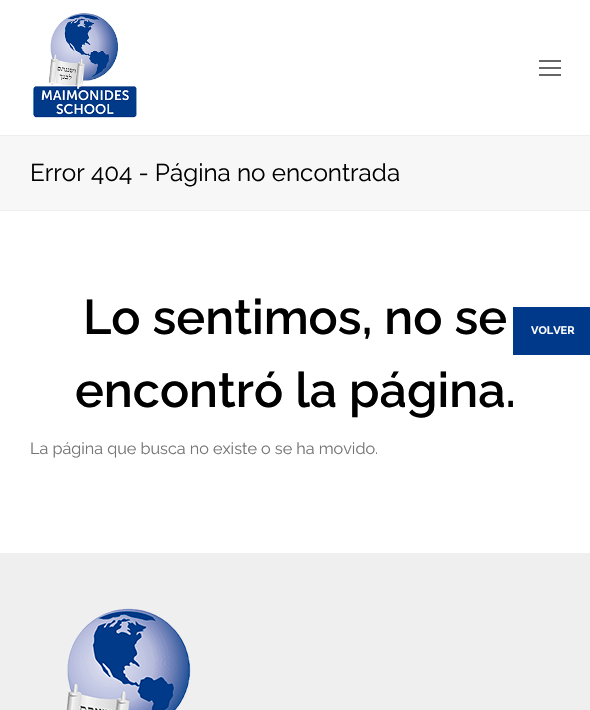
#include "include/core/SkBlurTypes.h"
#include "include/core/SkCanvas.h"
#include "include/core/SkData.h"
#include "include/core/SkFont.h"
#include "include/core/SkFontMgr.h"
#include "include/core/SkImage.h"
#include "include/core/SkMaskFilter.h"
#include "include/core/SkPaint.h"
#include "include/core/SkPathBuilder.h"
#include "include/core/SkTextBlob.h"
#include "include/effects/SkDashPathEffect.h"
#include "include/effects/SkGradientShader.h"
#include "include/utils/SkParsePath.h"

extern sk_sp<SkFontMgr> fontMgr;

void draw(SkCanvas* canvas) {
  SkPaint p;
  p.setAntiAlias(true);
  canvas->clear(SK_ColorWHITE);
  canvas->drawImageRect(SkImages::DeferredFromEncodedData(SkData::MakeFromFileName("images/1.png")), SkRect::MakeLTRB(33, 13, 137, 118), SkSamplingOptions());
  p.setColor(SkColorSetRGB(102, 102, 102));
  canvas->drawRect(SkRect::MakeLTRB(539, 67, 561, 69), p);
  canvas->drawRect(SkRect::MakeLTRB(539, 60, 561, 62), p);
  canvas->drawRect(SkRect::MakeLTRB(539, 74, 561, 76), p);
  p.setColor(SkColorSetRGB(247, 247, 247));
  canvas->drawRect(SkRect::MakeLTRB(0, 136, 590, 210), p);
  p.setColor(SkColorSetRGB(238, 238, 238));
  canvas->drawRect(SkRect::MakeLTRB(0, 135, 590, 136), p);
  canvas->drawRect(SkRect::MakeLTRB(0, 210, 590, 211), p);
  p.setColor(SkColorSetRGB(239, 239, 239));
  canvas->drawRect(SkRect::MakeLTRB(0, 553, 590, 710), p);
  canvas->drawImageRect(SkImages::DeferredFromEncodedData(SkData::MakeFromFileName("images/2.png")), SkRect::MakeLTRB(66, 608, 191, 710), SkSamplingOptions());
  p.setColor(SkColorSetRGB(0, 56, 138));
  canvas->drawRect(SkRect::MakeLTRB(513, 307, 590, 355), p);
  SkFont font1(fontMgr->matchFamilyStyle("Raleway", SkFontStyle::Normal()), 24.25f);
  font1.setSubpixel(true);
  p.setColor(SK_ColorBLACK);
  canvas->drawString("Error 404 - Página no encontrada", 30, 181, font1, p);
  SkFont font2(fontMgr->matchFamilyStyle("Raleway", SkFontStyle(600, SkFontStyle::kNormal_Width, SkFontStyle::kUpright_Slant)), 48.5f);
  font2.setSubpixel(true);
  canvas->drawString("Lo sentimos, no se", 83, 334, font2, p);
  canvas->drawString("encontró la página.", 75, 407, font2, p);
  SkFont font3(fontMgr->matchFamilyStyle("Raleway", SkFontStyle::Normal()), 16.2f);
  font3.setSubpixel(true);
  p.setColor(SkColorSetRGB(117, 117, 117));
  canvas->drawString("La página que busca no existe o se ha movido.", 30, 454, font3, p);
  SkFont font4(fontMgr->matchFamilyStyle("Raleway", SkFontStyle::Bold()), 11);
  font4.setSubpixel(true);
  p.setColor(SK_ColorWHITE);
  canvas->drawString("VOLVER", 531, 334, font4, p);
}
